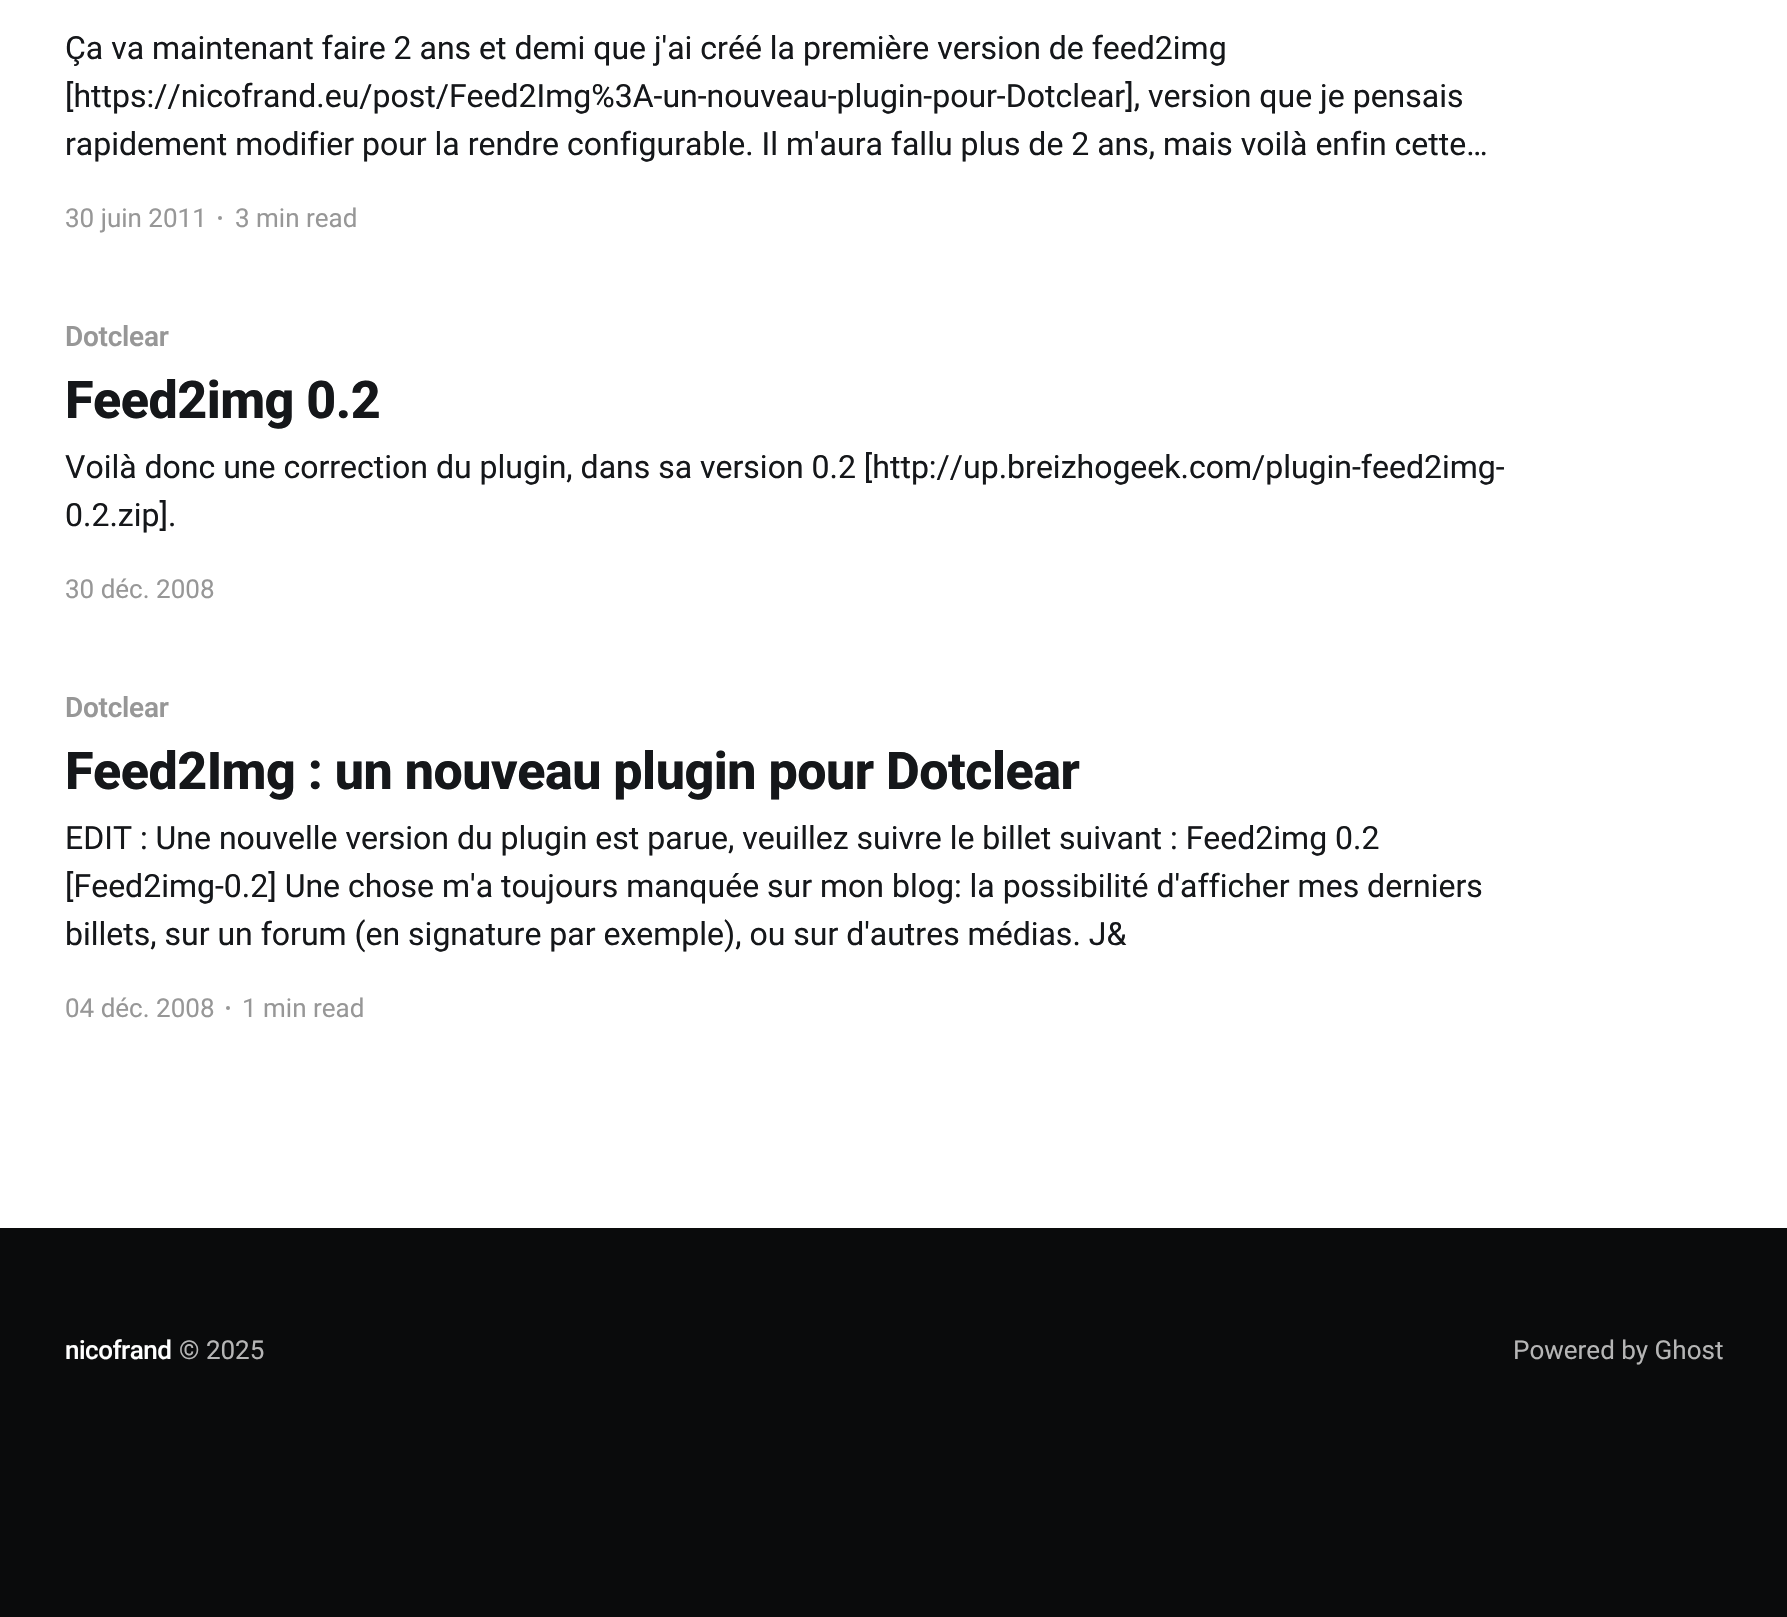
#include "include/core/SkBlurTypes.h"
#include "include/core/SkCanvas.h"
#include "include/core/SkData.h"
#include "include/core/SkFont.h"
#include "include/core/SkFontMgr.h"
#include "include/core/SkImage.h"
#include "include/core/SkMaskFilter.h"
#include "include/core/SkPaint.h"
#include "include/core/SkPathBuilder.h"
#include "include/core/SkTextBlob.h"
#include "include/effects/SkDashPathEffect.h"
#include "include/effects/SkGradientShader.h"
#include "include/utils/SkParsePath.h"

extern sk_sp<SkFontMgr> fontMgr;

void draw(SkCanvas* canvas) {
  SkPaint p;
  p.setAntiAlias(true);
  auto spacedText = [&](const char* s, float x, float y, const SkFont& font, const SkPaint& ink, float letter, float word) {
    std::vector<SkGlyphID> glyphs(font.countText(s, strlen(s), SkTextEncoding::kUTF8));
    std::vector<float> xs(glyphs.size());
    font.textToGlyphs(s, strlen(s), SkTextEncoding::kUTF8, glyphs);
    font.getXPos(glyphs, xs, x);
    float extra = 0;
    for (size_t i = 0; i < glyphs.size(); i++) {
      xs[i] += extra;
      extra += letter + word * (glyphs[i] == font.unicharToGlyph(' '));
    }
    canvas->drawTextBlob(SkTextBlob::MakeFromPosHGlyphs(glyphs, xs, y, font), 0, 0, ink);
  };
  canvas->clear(SK_ColorWHITE);
  p.setColor(SkColorSetRGB(151, 151, 151));
  canvas->drawCircle(220, 218, 2, p);
  canvas->drawCircle(228, 1008, 2, p);
  p.setColor(SkColorSetRGB(10, 11, 12));
  canvas->drawRect(SkRect::MakeLTRB(0, 1228, 1787, 1617), p);
  SkFont font1(fontMgr->matchFamilyStyle("Roboto", SkFontStyle::Normal()), 32);
  font1.setSubpixel(true);
  p.setColor(SkColorSetRGB(21, 23, 26));
  canvas->drawString("Ça va maintenant faire 2 ans et demi que j'ai créé la première version de feed2img", 65, 59, font1, p);
  canvas->drawString("[https://nicofrand.eu/post/Feed2Img%3A-un-nouveau-plugin-pour-Dotclear], version que je pensais", 65, 107, font1, p);
  canvas->drawString("rapidement modifier pour la rendre configurable. Il m'aura fallu plus de 2 ans, mais voilà enfin cette…", 65, 155, font1, p);
  SkFont font2(fontMgr->matchFamilyStyle("Roboto", SkFontStyle::Normal()), 26);
  font2.setSubpixel(true);
  p.setColor(SkColorSetRGB(151, 151, 151));
  canvas->drawString("30 juin 2011", 65, 227, font2, p);
  canvas->drawString("3 min read", 235, 227, font2, p);
  SkFont font3(fontMgr->matchFamilyStyle("Roboto", SkFontStyle(600, SkFontStyle::kNormal_Width, SkFontStyle::kUpright_Slant)), 28);
  font3.setSubpixel(true);
  spacedText("Dotclear", 65, 346, font3, p, -0.25f, 0);
  SkFont font4(fontMgr->matchFamilyStyle("Roboto", SkFontStyle(800, SkFontStyle::kNormal_Width, SkFontStyle::kUpright_Slant)), 52);
  font4.setSubpixel(true);
  p.setColor(SkColorSetRGB(21, 23, 26));
  spacedText("Feed2img 0.2", 65, 418, font4, p, -0.5f, 0);
  canvas->drawString("Voilà donc une correction du plugin, dans sa version 0.2 [http://up.breizhogeek.com/plugin-feed2img-", 65, 478, font1, p);
  canvas->drawString("0.2.zip].", 65, 526, font1, p);
  p.setColor(SkColorSetRGB(151, 151, 151));
  canvas->drawString("30 déc. 2008", 65, 598, font2, p);
  spacedText("Dotclear", 65, 717, font3, p, -0.25f, 0);
  p.setColor(SkColorSetRGB(21, 23, 26));
  spacedText("Feed2Img : un nouveau plugin pour Dotclear", 65, 789, font4, p, -0.5f, 0);
  canvas->drawString("EDIT : Une nouvelle version du plugin est parue, veuillez suivre le billet suivant : Feed2img 0.2", 65, 849, font1, p);
  canvas->drawString("[Feed2img-0.2] Une chose m'a toujours manquée sur mon blog: la possibilité d'afficher mes derniers", 65, 897, font1, p);
  canvas->drawString("billets, sur un forum (en signature par exemple), ou sur d'autres médias. J&", 65, 945, font1, p);
  p.setColor(SkColorSetRGB(151, 151, 151));
  canvas->drawString("04 déc. 2008", 65, 1017, font2, p);
  canvas->drawString("1 min read", 242, 1017, font2, p);
  SkFont font5(fontMgr->matchFamilyStyle("Roboto", SkFontStyle(500, SkFontStyle::kNormal_Width, SkFontStyle::kUpright_Slant)), 26);
  font5.setSubpixel(true);
  p.setColor(SK_ColorWHITE);
  spacedText("nicofrand", 65, 1359, font5, p, -0.5f, 0);
  p.setColor(SkColorSetRGB(182, 182, 182));
  canvas->drawString("© 2025", 179, 1359, font2, p);
  canvas->drawString("Powered by Ghost", 1513, 1359, font2, p);
}
